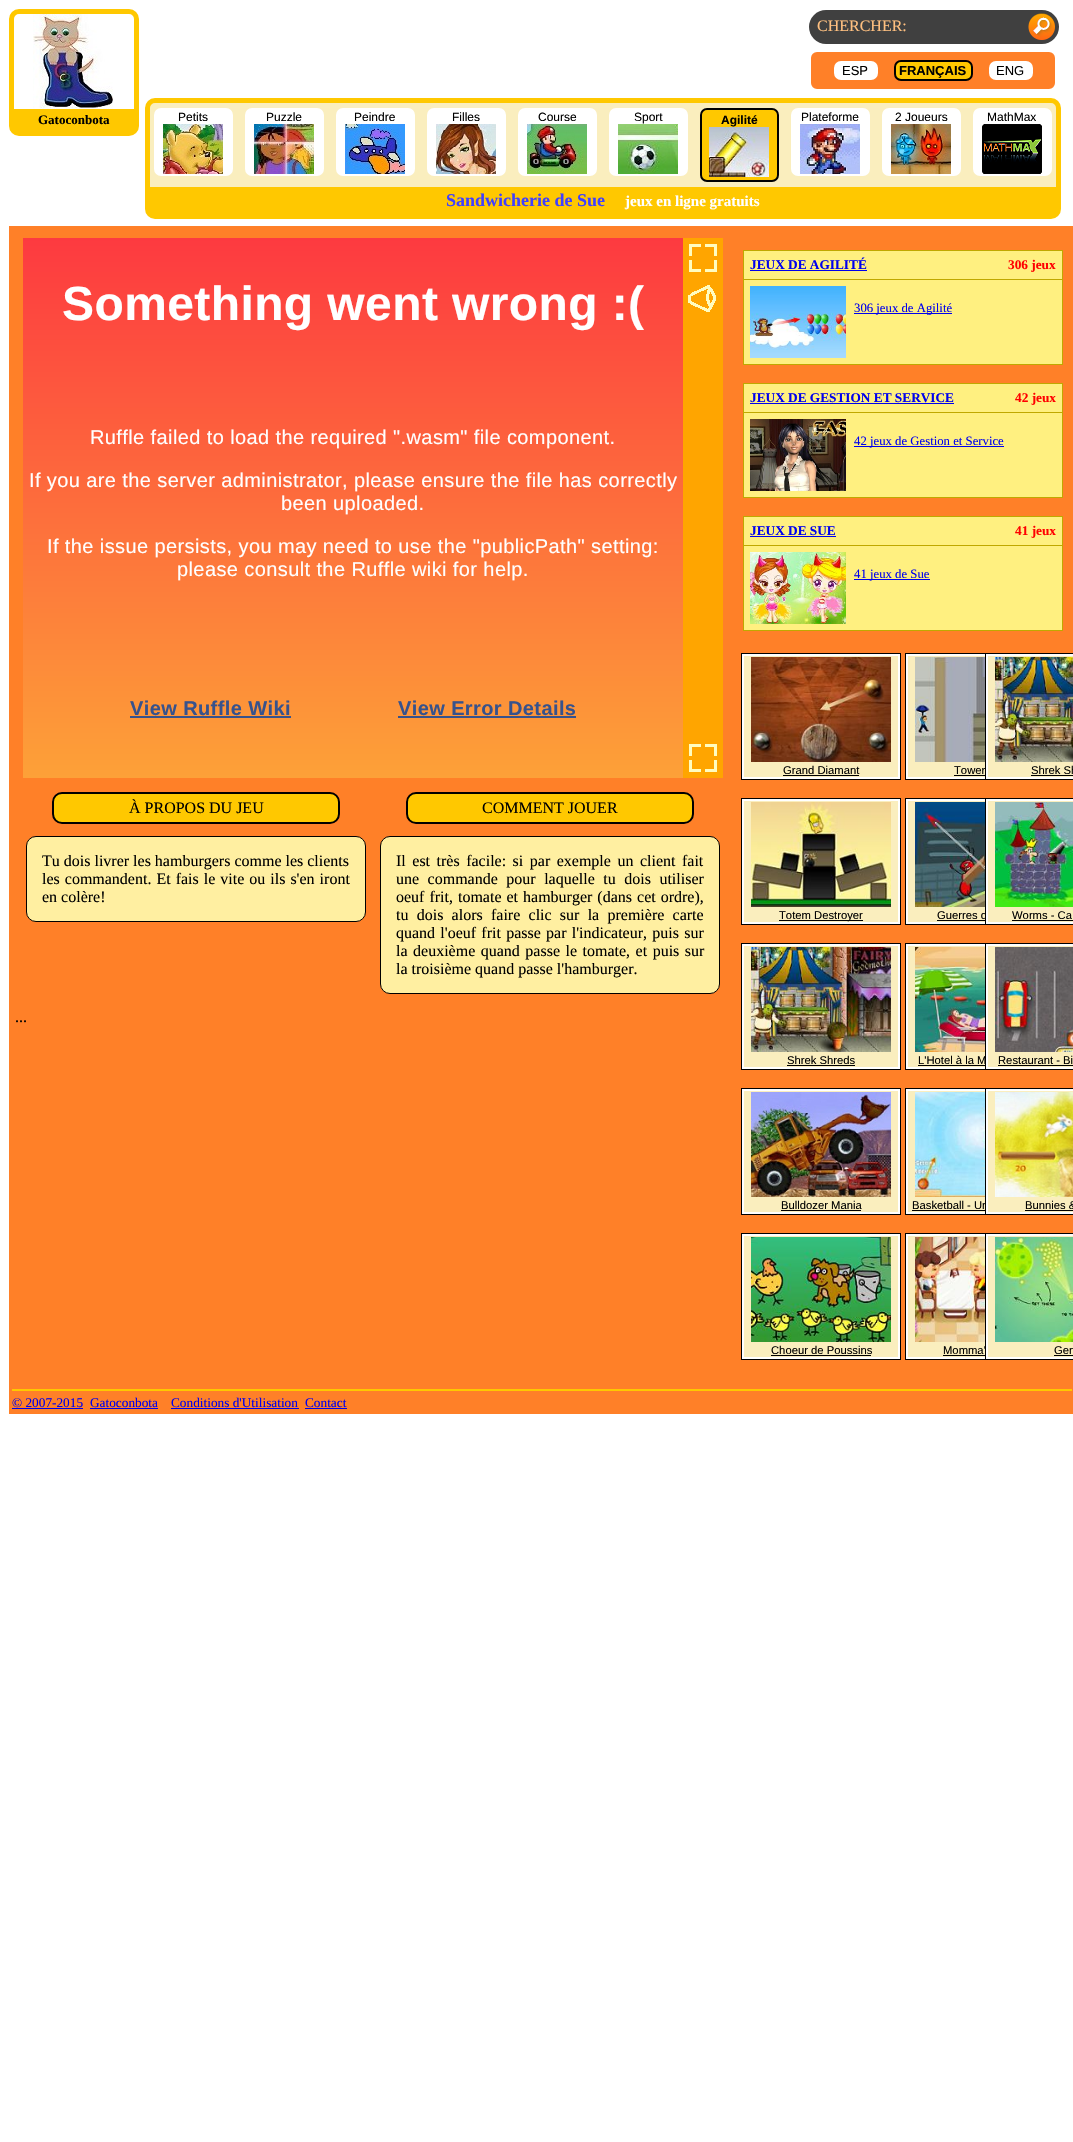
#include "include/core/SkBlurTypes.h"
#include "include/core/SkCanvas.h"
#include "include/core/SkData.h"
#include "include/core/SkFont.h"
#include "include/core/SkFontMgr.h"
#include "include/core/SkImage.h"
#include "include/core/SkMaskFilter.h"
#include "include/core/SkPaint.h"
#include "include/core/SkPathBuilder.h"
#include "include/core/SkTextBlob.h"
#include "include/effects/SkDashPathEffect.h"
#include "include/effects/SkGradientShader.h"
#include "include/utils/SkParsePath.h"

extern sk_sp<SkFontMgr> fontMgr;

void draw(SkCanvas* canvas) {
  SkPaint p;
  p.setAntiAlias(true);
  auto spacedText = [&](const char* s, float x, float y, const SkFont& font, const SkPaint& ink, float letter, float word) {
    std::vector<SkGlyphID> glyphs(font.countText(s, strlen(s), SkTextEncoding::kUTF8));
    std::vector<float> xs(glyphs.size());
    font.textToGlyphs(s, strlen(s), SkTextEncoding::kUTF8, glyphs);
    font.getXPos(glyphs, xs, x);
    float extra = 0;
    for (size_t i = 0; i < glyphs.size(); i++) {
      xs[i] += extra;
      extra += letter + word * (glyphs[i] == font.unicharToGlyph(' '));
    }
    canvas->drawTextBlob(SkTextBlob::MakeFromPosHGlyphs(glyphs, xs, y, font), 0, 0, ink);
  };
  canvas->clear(SK_ColorWHITE);
  p.setColor(SkColorSetRGB(64, 64, 64));
  canvas->drawRoundRect(SkRect::MakeLTRB(809, 10, 1059, 44), 17, 17, p);
  canvas->drawImageRect(SkImages::DeferredFromEncodedData(SkData::MakeFromFileName("images/1.png")), SkRect::MakeLTRB(1028, 13, 1055, 40), SkSamplingOptions());
  p.setColor(SkColorSetRGB(255, 128, 40));
  canvas->drawRoundRect(SkRect::MakeLTRB(812.5f, 53.5f, 1053.5f, 87.5f), 4.5f, 4.5f, p);
  p.setStyle(SkPaint::kStroke_Style);
  p.setStrokeWidth(3);
  canvas->drawRoundRect(SkRect::MakeLTRB(812.5f, 53.5f, 1053.5f, 87.5f), 4.5f, 4.5f, p);
  p.setStyle(SkPaint::kFill_Style);
  p.setColor(SK_ColorWHITE);
  canvas->drawRoundRect(SkRect::MakeLTRB(835, 62, 877, 79), 6, 6, p);
  p.setStyle(SkPaint::kStroke_Style);
  p.setStrokeWidth(2);
  canvas->drawRoundRect(SkRect::MakeLTRB(835, 62, 877, 79), 6, 6, p);
  p.setStyle(SkPaint::kFill_Style);
  p.setColor(SkColorSetRGB(255, 200, 0));
  canvas->drawRoundRect(SkRect::MakeLTRB(895, 61, 972, 80), 6, 6, p);
  p.setStyle(SkPaint::kStroke_Style);
  p.setColor(SK_ColorBLACK);
  canvas->drawRoundRect(SkRect::MakeLTRB(895, 61, 972, 80), 6, 6, p);
  p.setStyle(SkPaint::kFill_Style);
  p.setColor(SK_ColorWHITE);
  canvas->drawRoundRect(SkRect::MakeLTRB(990, 62, 1032, 79), 6, 6, p);
  p.setStyle(SkPaint::kStroke_Style);
  canvas->drawRoundRect(SkRect::MakeLTRB(990, 62, 1032, 79), 6, 6, p);
  p.setStrokeWidth(5);
  p.setColor(SkColorSetRGB(255, 200, 0));
  canvas->drawRoundRect(SkRect::MakeLTRB(11.5f, 11.5f, 136.5f, 133.5f), 7.5f, 7.5f, p);
  canvas->drawImageRect(SkImages::DeferredFromEncodedData(SkData::MakeFromFileName("images/2.png")), SkRect::MakeLTRB(33, 14, 113, 109), SkSamplingOptions());
  p.setStyle(SkPaint::kFill_Style);
  canvas->drawRect(SkRect::MakeLTRB(14, 109, 134, 131), p);
  p.setColor(SkColorSetRGB(250, 238, 190));
  canvas->drawRoundRect(SkRect::MakeLTRB(147.5f, 100.5f, 1058.5f, 216.5f), 7.5f, 7.5f, p);
  p.setStyle(SkPaint::kStroke_Style);
  p.setColor(SkColorSetRGB(255, 200, 0));
  canvas->drawRoundRect(SkRect::MakeLTRB(147.5f, 100.5f, 1058.5f, 216.5f), 7.5f, 7.5f, p);
  p.setStyle(SkPaint::kFill_Style);
  p.setColor(SK_ColorWHITE);
  canvas->drawRoundRect(SkRect::MakeLTRB(155, 109, 232, 175), 6, 6, p);
  p.setStyle(SkPaint::kStroke_Style);
  p.setStrokeWidth(2);
  canvas->drawRoundRect(SkRect::MakeLTRB(155, 109, 232, 175), 6, 6, p);
  canvas->drawImageRect(SkImages::DeferredFromEncodedData(SkData::MakeFromFileName("images/3.png")), SkRect::MakeLTRB(163, 124, 223, 174), SkSamplingOptions());
  p.setStyle(SkPaint::kFill_Style);
  canvas->drawRoundRect(SkRect::MakeLTRB(246, 109, 323, 175), 6, 6, p);
  p.setStyle(SkPaint::kStroke_Style);
  canvas->drawRoundRect(SkRect::MakeLTRB(246, 109, 323, 175), 6, 6, p);
  canvas->drawImageRect(SkImages::DeferredFromEncodedData(SkData::MakeFromFileName("images/4.png")), SkRect::MakeLTRB(254, 124, 314, 174), SkSamplingOptions());
  p.setStyle(SkPaint::kFill_Style);
  canvas->drawRoundRect(SkRect::MakeLTRB(337, 109, 414, 175), 6, 6, p);
  p.setStyle(SkPaint::kStroke_Style);
  canvas->drawRoundRect(SkRect::MakeLTRB(337, 109, 414, 175), 6, 6, p);
  canvas->drawImageRect(SkImages::DeferredFromEncodedData(SkData::MakeFromFileName("images/5.png")), SkRect::MakeLTRB(345, 124, 405, 174), SkSamplingOptions());
  p.setStyle(SkPaint::kFill_Style);
  canvas->drawRoundRect(SkRect::MakeLTRB(428, 109, 505, 175), 6, 6, p);
  p.setStyle(SkPaint::kStroke_Style);
  canvas->drawRoundRect(SkRect::MakeLTRB(428, 109, 505, 175), 6, 6, p);
  canvas->drawImageRect(SkImages::DeferredFromEncodedData(SkData::MakeFromFileName("images/6.png")), SkRect::MakeLTRB(436, 124, 496, 174), SkSamplingOptions());
  p.setStyle(SkPaint::kFill_Style);
  canvas->drawRoundRect(SkRect::MakeLTRB(519, 109, 596, 175), 6, 6, p);
  p.setStyle(SkPaint::kStroke_Style);
  canvas->drawRoundRect(SkRect::MakeLTRB(519, 109, 596, 175), 6, 6, p);
  canvas->drawImageRect(SkImages::DeferredFromEncodedData(SkData::MakeFromFileName("images/7.png")), SkRect::MakeLTRB(527, 124, 587, 174), SkSamplingOptions());
  p.setStyle(SkPaint::kFill_Style);
  canvas->drawRoundRect(SkRect::MakeLTRB(610, 109, 687, 175), 6, 6, p);
  p.setStyle(SkPaint::kStroke_Style);
  canvas->drawRoundRect(SkRect::MakeLTRB(610, 109, 687, 175), 6, 6, p);
  canvas->drawImageRect(SkImages::DeferredFromEncodedData(SkData::MakeFromFileName("images/8.png")), SkRect::MakeLTRB(618, 124, 678, 174), SkSamplingOptions());
  p.setStyle(SkPaint::kFill_Style);
  p.setColor(SkColorSetRGB(255, 200, 0));
  canvas->drawRoundRect(SkRect::MakeLTRB(701, 109, 778, 181), 6, 6, p);
  p.setStyle(SkPaint::kStroke_Style);
  p.setColor(SK_ColorBLACK);
  canvas->drawRoundRect(SkRect::MakeLTRB(701, 109, 778, 181), 6, 6, p);
  canvas->drawImageRect(SkImages::DeferredFromEncodedData(SkData::MakeFromFileName("images/9.png")), SkRect::MakeLTRB(709, 127, 769, 177), SkSamplingOptions());
  p.setStyle(SkPaint::kFill_Style);
  p.setColor(SK_ColorWHITE);
  canvas->drawRoundRect(SkRect::MakeLTRB(792, 109, 869, 175), 6, 6, p);
  p.setStyle(SkPaint::kStroke_Style);
  canvas->drawRoundRect(SkRect::MakeLTRB(792, 109, 869, 175), 6, 6, p);
  canvas->drawImageRect(SkImages::DeferredFromEncodedData(SkData::MakeFromFileName("images/10.png")), SkRect::MakeLTRB(800, 124, 860, 174), SkSamplingOptions());
  p.setStyle(SkPaint::kFill_Style);
  canvas->drawRoundRect(SkRect::MakeLTRB(883, 109, 960, 175), 6, 6, p);
  p.setStyle(SkPaint::kStroke_Style);
  canvas->drawRoundRect(SkRect::MakeLTRB(883, 109, 960, 175), 6, 6, p);
  canvas->drawImageRect(SkImages::DeferredFromEncodedData(SkData::MakeFromFileName("images/11.png")), SkRect::MakeLTRB(891, 124, 951, 174), SkSamplingOptions());
  p.setStyle(SkPaint::kFill_Style);
  canvas->drawRoundRect(SkRect::MakeLTRB(974, 109, 1051, 175), 6, 6, p);
  p.setStyle(SkPaint::kStroke_Style);
  canvas->drawRoundRect(SkRect::MakeLTRB(974, 109, 1051, 175), 6, 6, p);
  canvas->drawImageRect(SkImages::DeferredFromEncodedData(SkData::MakeFromFileName("images/12.png")), SkRect::MakeLTRB(982, 124, 1042, 174), SkSamplingOptions());
  p.setStyle(SkPaint::kFill_Style);
  p.setColor(SkColorSetRGB(255, 200, 0));
  canvas->drawRect(SkRect::MakeLTRB(150, 187, 1056, 214), p);
  p.setColor(SkColorSetRGB(255, 128, 40));
  canvas->drawRect(SkRect::MakeLTRB(9, 226, 1073, 1414), p);
  {
    const SkColor colors[] = {SkColorSetRGB(253, 58, 64), SkColorSetRGB(253, 161, 56)};
    const float stops[] = {0, 1};
    const SkPoint ends[] = {{353, 238}, {353, 778}};
    p.setShader(SkGradientShader::MakeLinear(ends, colors, stops, 2, SkTileMode::kClamp));
    p.setAlpha(255);
  }
  canvas->drawRect(SkRect::MakeLTRB(23, 238, 683, 778), p);
  p.setShader(nullptr);
  p.setColor(SkColorSetRGB(55, 82, 140));
  canvas->drawRect(SkRect::MakeLTRB(130, 716, 291, 718), p);
  canvas->drawRect(SkRect::MakeLTRB(398, 716, 576, 718), p);
  p.setColor(SkColorSetRGB(255, 165, 0));
  canvas->drawRect(SkRect::MakeLTRB(683, 238, 723, 778), p);
  canvas->drawImageRect(SkImages::DeferredFromEncodedData(SkData::MakeFromFileName("images/13.png")), SkRect::MakeLTRB(689, 244, 717, 272), SkSamplingOptions());
  canvas->drawImageRect(SkImages::DeferredFromEncodedData(SkData::MakeFromFileName("images/14.png")), SkRect::MakeLTRB(688, 285, 716, 312), SkSamplingOptions());
  canvas->drawImageRect(SkImages::DeferredFromEncodedData(SkData::MakeFromFileName("images/13.png")), SkRect::MakeLTRB(689, 744, 717, 772), SkSamplingOptions());
  p.setColor(SkColorSetRGB(255, 200, 0));
  canvas->drawRoundRect(SkRect::MakeLTRB(53, 793, 339, 823), 9, 9, p);
  p.setStyle(SkPaint::kStroke_Style);
  p.setColor(SK_ColorBLACK);
  canvas->drawRoundRect(SkRect::MakeLTRB(53, 793, 339, 823), 9, 9, p);
  p.setStyle(SkPaint::kFill_Style);
  p.setColor(SkColorSetRGB(255, 200, 0));
  canvas->drawRoundRect(SkRect::MakeLTRB(407, 793, 693, 823), 9, 9, p);
  p.setStyle(SkPaint::kStroke_Style);
  p.setColor(SK_ColorBLACK);
  canvas->drawRoundRect(SkRect::MakeLTRB(407, 793, 693, 823), 9, 9, p);
  p.setStyle(SkPaint::kFill_Style);
  p.setColor(SkColorSetRGB(255, 239, 161));
  canvas->drawRoundRect(SkRect::MakeLTRB(26.5f, 836.5f, 365.5f, 921.5f), 9.5f, 9.5f, p);
  p.setStyle(SkPaint::kStroke_Style);
  p.setStrokeWidth(1);
  p.setColor(SK_ColorBLACK);
  canvas->drawRoundRect(SkRect::MakeLTRB(26.5f, 836.5f, 365.5f, 921.5f), 9.5f, 9.5f, p);
  p.setStyle(SkPaint::kFill_Style);
  p.setColor(SkColorSetRGB(255, 239, 161));
  canvas->drawRoundRect(SkRect::MakeLTRB(380.5f, 836.5f, 719.5f, 993.5f), 9.5f, 9.5f, p);
  p.setStyle(SkPaint::kStroke_Style);
  p.setColor(SK_ColorBLACK);
  canvas->drawRoundRect(SkRect::MakeLTRB(380.5f, 836.5f, 719.5f, 993.5f), 9.5f, 9.5f, p);
  p.setStyle(SkPaint::kFill_Style);
  p.setColor(SkColorSetRGB(255, 240, 128));
  canvas->drawRect(SkRect::MakeLTRB(744, 251, 1062, 364), p);
  p.setColor(SkColorSetRGB(192, 168, 0));
  canvas->drawRect(SkRect::MakeLTRB(743, 250, 1063, 251), p);
  canvas->drawRect(SkRect::MakeLTRB(1062, 250, 1063, 365), p);
  canvas->drawRect(SkRect::MakeLTRB(743, 364, 1063, 365), p);
  canvas->drawRect(SkRect::MakeLTRB(743, 250, 744, 365), p);
  p.setColor(SkColorSetRGB(0, 0, 238));
  canvas->drawRect(SkRect::MakeLTRB(750, 270, 867, 271), p);
  p.setColor(SkColorSetRGB(192, 168, 0));
  canvas->drawRect(SkRect::MakeLTRB(743, 279, 1063, 280), p);
  canvas->drawImageRect(SkImages::DeferredFromEncodedData(SkData::MakeFromFileName("images/15.png")), SkRect::MakeLTRB(750, 286, 846, 358), SkSamplingOptions());
  p.setColor(SkColorSetRGB(0, 0, 238));
  canvas->drawRect(SkRect::MakeLTRB(854, 313, 952, 314), p);
  p.setColor(SkColorSetRGB(255, 240, 128));
  canvas->drawRect(SkRect::MakeLTRB(744, 384, 1062, 497), p);
  p.setColor(SkColorSetRGB(192, 168, 0));
  canvas->drawRect(SkRect::MakeLTRB(743, 383, 1063, 384), p);
  canvas->drawRect(SkRect::MakeLTRB(1062, 383, 1063, 498), p);
  canvas->drawRect(SkRect::MakeLTRB(743, 497, 1063, 498), p);
  canvas->drawRect(SkRect::MakeLTRB(743, 383, 744, 498), p);
  p.setColor(SkColorSetRGB(0, 0, 238));
  canvas->drawRect(SkRect::MakeLTRB(750, 403, 954, 404), p);
  p.setColor(SkColorSetRGB(192, 168, 0));
  canvas->drawRect(SkRect::MakeLTRB(743, 412, 1063, 413), p);
  canvas->drawImageRect(SkImages::DeferredFromEncodedData(SkData::MakeFromFileName("images/16.png")), SkRect::MakeLTRB(750, 419, 846, 491), SkSamplingOptions());
  p.setColor(SkColorSetRGB(0, 0, 238));
  canvas->drawRect(SkRect::MakeLTRB(854, 446, 1004, 447), p);
  p.setColor(SkColorSetRGB(255, 240, 128));
  canvas->drawRect(SkRect::MakeLTRB(744, 517, 1062, 630), p);
  p.setColor(SkColorSetRGB(192, 168, 0));
  canvas->drawRect(SkRect::MakeLTRB(743, 516, 1063, 517), p);
  canvas->drawRect(SkRect::MakeLTRB(1062, 516, 1063, 631), p);
  canvas->drawRect(SkRect::MakeLTRB(743, 630, 1063, 631), p);
  canvas->drawRect(SkRect::MakeLTRB(743, 516, 744, 631), p);
  p.setColor(SkColorSetRGB(0, 0, 238));
  canvas->drawRect(SkRect::MakeLTRB(750, 536, 836, 537), p);
  p.setColor(SkColorSetRGB(192, 168, 0));
  canvas->drawRect(SkRect::MakeLTRB(743, 545, 1063, 546), p);
  canvas->drawImageRect(SkImages::DeferredFromEncodedData(SkData::MakeFromFileName("images/17.png")), SkRect::MakeLTRB(750, 552, 846, 624), SkSamplingOptions());
  p.setColor(SkColorSetRGB(0, 0, 238));
  canvas->drawRect(SkRect::MakeLTRB(854, 579, 930, 580), p);
  p.setColor(SK_ColorWHITE);
  canvas->drawRect(SkRect::MakeLTRB(742, 654, 900, 779), p);
  p.setColor(SK_ColorBLACK);
  canvas->drawRect(SkRect::MakeLTRB(741, 653, 901, 654), p);
  canvas->drawRect(SkRect::MakeLTRB(900, 653, 901, 780), p);
  canvas->drawRect(SkRect::MakeLTRB(741, 779, 901, 780), p);
  canvas->drawRect(SkRect::MakeLTRB(741, 653, 742, 780), p);
  p.setColor(SkColorSetRGB(250, 238, 190));
  canvas->drawRect(SkRect::MakeLTRB(744, 656, 898, 777), p);
  canvas->drawImageRect(SkImages::DeferredFromEncodedData(SkData::MakeFromFileName("images/18.png")), SkRect::MakeLTRB(751, 657, 891, 762), SkSamplingOptions());
  p.setColor(SK_ColorBLACK);
  canvas->drawRect(SkRect::MakeLTRB(783, 775, 859, 776), p);
  p.setColor(SK_ColorWHITE);
  canvas->drawRect(SkRect::MakeLTRB(742, 799, 900, 924), p);
  p.setColor(SK_ColorBLACK);
  canvas->drawRect(SkRect::MakeLTRB(741, 798, 901, 799), p);
  canvas->drawRect(SkRect::MakeLTRB(900, 798, 901, 925), p);
  canvas->drawRect(SkRect::MakeLTRB(741, 924, 901, 925), p);
  canvas->drawRect(SkRect::MakeLTRB(741, 798, 742, 925), p);
  p.setColor(SkColorSetRGB(250, 238, 190));
  canvas->drawRect(SkRect::MakeLTRB(744, 801, 898, 922), p);
  canvas->drawImageRect(SkImages::DeferredFromEncodedData(SkData::MakeFromFileName("images/19.png")), SkRect::MakeLTRB(751, 802, 891, 907), SkSamplingOptions());
  p.setColor(SK_ColorBLACK);
  canvas->drawRect(SkRect::MakeLTRB(779, 920, 863, 921), p);
  p.setColor(SK_ColorWHITE);
  canvas->drawRect(SkRect::MakeLTRB(742, 944, 900, 1069), p);
  p.setColor(SK_ColorBLACK);
  canvas->drawRect(SkRect::MakeLTRB(741, 943, 901, 944), p);
  canvas->drawRect(SkRect::MakeLTRB(900, 943, 901, 1070), p);
  canvas->drawRect(SkRect::MakeLTRB(741, 1069, 901, 1070), p);
  canvas->drawRect(SkRect::MakeLTRB(741, 943, 742, 1070), p);
  p.setColor(SkColorSetRGB(250, 238, 190));
  canvas->drawRect(SkRect::MakeLTRB(744, 946, 898, 1067), p);
  canvas->drawImageRect(SkImages::DeferredFromEncodedData(SkData::MakeFromFileName("images/20.png")), SkRect::MakeLTRB(751, 947, 891, 1052), SkSamplingOptions());
  p.setColor(SK_ColorBLACK);
  canvas->drawRect(SkRect::MakeLTRB(787, 1065, 855, 1066), p);
  p.setColor(SK_ColorWHITE);
  canvas->drawRect(SkRect::MakeLTRB(742, 1089, 900, 1214), p);
  p.setColor(SK_ColorBLACK);
  canvas->drawRect(SkRect::MakeLTRB(741, 1088, 901, 1089), p);
  canvas->drawRect(SkRect::MakeLTRB(900, 1088, 901, 1215), p);
  canvas->drawRect(SkRect::MakeLTRB(741, 1214, 901, 1215), p);
  canvas->drawRect(SkRect::MakeLTRB(741, 1088, 742, 1215), p);
  p.setColor(SkColorSetRGB(250, 238, 190));
  canvas->drawRect(SkRect::MakeLTRB(744, 1091, 898, 1212), p);
  canvas->drawImageRect(SkImages::DeferredFromEncodedData(SkData::MakeFromFileName("images/21.png")), SkRect::MakeLTRB(751, 1092, 891, 1197), SkSamplingOptions());
  p.setColor(SK_ColorBLACK);
  canvas->drawRect(SkRect::MakeLTRB(781, 1210, 861, 1211), p);
  p.setColor(SK_ColorWHITE);
  canvas->drawRect(SkRect::MakeLTRB(742, 1234, 900, 1359), p);
  p.setColor(SK_ColorBLACK);
  canvas->drawRect(SkRect::MakeLTRB(741, 1233, 901, 1234), p);
  canvas->drawRect(SkRect::MakeLTRB(900, 1233, 901, 1360), p);
  canvas->drawRect(SkRect::MakeLTRB(741, 1359, 901, 1360), p);
  canvas->drawRect(SkRect::MakeLTRB(741, 1233, 742, 1360), p);
  p.setColor(SkColorSetRGB(250, 238, 190));
  canvas->drawRect(SkRect::MakeLTRB(744, 1236, 898, 1357), p);
  canvas->drawImageRect(SkImages::DeferredFromEncodedData(SkData::MakeFromFileName("images/22.png")), SkRect::MakeLTRB(751, 1237, 891, 1342), SkSamplingOptions());
  p.setColor(SK_ColorBLACK);
  canvas->drawRect(SkRect::MakeLTRB(771, 1355, 871, 1356), p);
  p.setColor(SK_ColorWHITE);
  canvas->drawRect(SkRect::MakeLTRB(906, 654, 985, 779), p);
  p.setColor(SK_ColorBLACK);
  canvas->drawRect(SkRect::MakeLTRB(905, 653, 1073, 654), p);
  canvas->drawRect(SkRect::MakeLTRB(905, 779, 1073, 780), p);
  canvas->drawRect(SkRect::MakeLTRB(905, 653, 906, 780), p);
  p.setColor(SkColorSetRGB(250, 238, 190));
  canvas->drawRect(SkRect::MakeLTRB(908, 656, 985, 777), p);
  canvas->drawImageRect(SkImages::DeferredFromEncodedData(SkData::MakeFromFileName("images/23.png")), SkRect::MakeLTRB(915, 657, 985, 762), SkSamplingOptions());
  p.setColor(SK_ColorBLACK);
  canvas->drawRect(SkRect::MakeLTRB(954, 775, 985, 776), p);
  p.setColor(SK_ColorWHITE);
  canvas->drawRect(SkRect::MakeLTRB(906, 799, 985, 924), p);
  p.setColor(SK_ColorBLACK);
  canvas->drawRect(SkRect::MakeLTRB(905, 798, 1073, 799), p);
  canvas->drawRect(SkRect::MakeLTRB(905, 924, 1073, 925), p);
  canvas->drawRect(SkRect::MakeLTRB(905, 798, 906, 925), p);
  p.setColor(SkColorSetRGB(250, 238, 190));
  canvas->drawRect(SkRect::MakeLTRB(908, 801, 985, 922), p);
  canvas->drawImageRect(SkImages::DeferredFromEncodedData(SkData::MakeFromFileName("images/24.png")), SkRect::MakeLTRB(915, 802, 985, 907), SkSamplingOptions());
  p.setColor(SK_ColorBLACK);
  canvas->drawRect(SkRect::MakeLTRB(937, 920, 985, 921), p);
  p.setColor(SK_ColorWHITE);
  canvas->drawRect(SkRect::MakeLTRB(906, 944, 985, 1069), p);
  p.setColor(SK_ColorBLACK);
  canvas->drawRect(SkRect::MakeLTRB(905, 943, 1073, 944), p);
  canvas->drawRect(SkRect::MakeLTRB(905, 1069, 1073, 1070), p);
  canvas->drawRect(SkRect::MakeLTRB(905, 943, 906, 1070), p);
  p.setColor(SkColorSetRGB(250, 238, 190));
  canvas->drawRect(SkRect::MakeLTRB(908, 946, 985, 1067), p);
  canvas->drawImageRect(SkImages::DeferredFromEncodedData(SkData::MakeFromFileName("images/25.png")), SkRect::MakeLTRB(915, 947, 985, 1052), SkSamplingOptions());
  p.setColor(SK_ColorBLACK);
  canvas->drawRect(SkRect::MakeLTRB(918, 1065, 985, 1066), p);
  p.setColor(SK_ColorWHITE);
  canvas->drawRect(SkRect::MakeLTRB(906, 1089, 985, 1214), p);
  p.setColor(SK_ColorBLACK);
  canvas->drawRect(SkRect::MakeLTRB(905, 1088, 1073, 1089), p);
  canvas->drawRect(SkRect::MakeLTRB(905, 1214, 1073, 1215), p);
  canvas->drawRect(SkRect::MakeLTRB(905, 1088, 906, 1215), p);
  p.setColor(SkColorSetRGB(250, 238, 190));
  canvas->drawRect(SkRect::MakeLTRB(908, 1091, 985, 1212), p);
  canvas->drawImageRect(SkImages::DeferredFromEncodedData(SkData::MakeFromFileName("images/26.png")), SkRect::MakeLTRB(915, 1092, 985, 1197), SkSamplingOptions());
  p.setColor(SK_ColorBLACK);
  canvas->drawRect(SkRect::MakeLTRB(912, 1210, 985, 1211), p);
  p.setColor(SK_ColorWHITE);
  canvas->drawRect(SkRect::MakeLTRB(906, 1234, 985, 1359), p);
  p.setColor(SK_ColorBLACK);
  canvas->drawRect(SkRect::MakeLTRB(905, 1233, 1073, 1234), p);
  canvas->drawRect(SkRect::MakeLTRB(905, 1359, 1073, 1360), p);
  canvas->drawRect(SkRect::MakeLTRB(905, 1233, 906, 1360), p);
  p.setColor(SkColorSetRGB(250, 238, 190));
  canvas->drawRect(SkRect::MakeLTRB(908, 1236, 985, 1357), p);
  canvas->drawImageRect(SkImages::DeferredFromEncodedData(SkData::MakeFromFileName("images/27.png")), SkRect::MakeLTRB(915, 1237, 985, 1342), SkSamplingOptions());
  p.setColor(SK_ColorBLACK);
  canvas->drawRect(SkRect::MakeLTRB(943, 1355, 985, 1356), p);
  p.setColor(SK_ColorWHITE);
  canvas->drawRect(SkRect::MakeLTRB(986, 654, 1073, 779), p);
  p.setColor(SK_ColorBLACK);
  canvas->drawRect(SkRect::MakeLTRB(985, 653, 986, 780), p);
  p.setColor(SkColorSetRGB(250, 238, 190));
  canvas->drawRect(SkRect::MakeLTRB(988, 656, 1073, 777), p);
  canvas->drawImageRect(SkImages::DeferredFromEncodedData(SkData::MakeFromFileName("images/28.png")), SkRect::MakeLTRB(995, 657, 1073, 762), SkSamplingOptions());
  p.setColor(SK_ColorBLACK);
  canvas->drawRect(SkRect::MakeLTRB(1031, 775, 1073, 776), p);
  canvas->drawRect(SkRect::MakeLTRB(985, 798, 986, 925), p);
  p.setColor(SK_ColorWHITE);
  canvas->drawRect(SkRect::MakeLTRB(986, 944, 1073, 1069), p);
  p.setColor(SK_ColorBLACK);
  canvas->drawRect(SkRect::MakeLTRB(985, 943, 986, 1070), p);
  p.setColor(SkColorSetRGB(250, 238, 190));
  canvas->drawRect(SkRect::MakeLTRB(988, 946, 1073, 1067), p);
  canvas->drawImageRect(SkImages::DeferredFromEncodedData(SkData::MakeFromFileName("images/30.png")), SkRect::MakeLTRB(995, 947, 1073, 1052), SkSamplingOptions());
  p.setColor(SK_ColorBLACK);
  canvas->drawRect(SkRect::MakeLTRB(998, 1065, 1073, 1066), p);
  canvas->drawRect(SkRect::MakeLTRB(985, 1088, 986, 1215), p);
  p.setColor(SK_ColorWHITE);
  canvas->drawRect(SkRect::MakeLTRB(986, 1234, 1073, 1359), p);
  p.setColor(SK_ColorBLACK);
  canvas->drawRect(SkRect::MakeLTRB(985, 1233, 986, 1360), p);
  p.setColor(SkColorSetRGB(250, 238, 190));
  canvas->drawRect(SkRect::MakeLTRB(988, 1236, 1073, 1357), p);
  canvas->drawImageRect(SkImages::DeferredFromEncodedData(SkData::MakeFromFileName("images/32.png")), SkRect::MakeLTRB(995, 1237, 1073, 1342), SkSamplingOptions());
  p.setColor(SK_ColorBLACK);
  canvas->drawRect(SkRect::MakeLTRB(1054, 1355, 1073, 1356), p);
  p.setColor(SkColorSetRGB(255, 200, 0));
  canvas->drawRect(SkRect::MakeLTRB(12, 1389, 1072, 1391), p);
  p.setColor(SkColorSetRGB(0, 0, 238));
  canvas->drawRect(SkRect::MakeLTRB(12, 1408, 83, 1409), p);
  canvas->drawRect(SkRect::MakeLTRB(90, 1408, 158, 1409), p);
  canvas->drawRect(SkRect::MakeLTRB(171, 1408, 299, 1409), p);
  canvas->drawRect(SkRect::MakeLTRB(305, 1408, 347, 1409), p);
  SkFont font1(fontMgr->matchFamilyStyle("Liberation Serif", SkFontStyle::Normal()), 16);
  font1.setSubpixel(true);
  p.setColor(SkColorSetRGB(255, 192, 128));
  canvas->drawString("CHERCHER:", 817, 31, font1, p);
  SkFont font2(fontMgr->matchFamilyStyle("Liberation Sans", SkFontStyle::Normal()), 13);
  font2.setSubpixel(true);
  p.setColor(SK_ColorBLACK);
  canvas->drawString("ESP", 842, 75, font2, p);
  SkFont font3(fontMgr->matchFamilyStyle("Liberation Sans", SkFontStyle::Bold()), 13);
  font3.setSubpixel(true);
  canvas->drawString("FRANÇAIS", 899, 75, font3, p);
  canvas->drawString("ENG", 996, 75, font2, p);
  SkFont font4(fontMgr->matchFamilyStyle("Liberation Serif", SkFontStyle::Bold()), 13);
  font4.setSubpixel(true);
  canvas->drawString("Gatoconbota", 38, 124, font4, p);
  SkFont font5(fontMgr->matchFamilyStyle("Liberation Sans", SkFontStyle::Normal()), 12);
  font5.setSubpixel(true);
  canvas->drawString("Petits", 178, 121, font5, p);
  canvas->drawString("Puzzle", 266, 121, font5, p);
  canvas->drawString("Peindre", 354, 121, font5, p);
  canvas->drawString("Filles", 452, 121, font5, p);
  canvas->drawString("Course", 538, 121, font5, p);
  canvas->drawString("Sport", 634, 121, font5, p);
  SkFont font6(fontMgr->matchFamilyStyle("Liberation Sans", SkFontStyle::Bold()), 12);
  font6.setSubpixel(true);
  canvas->drawString("Agilité", 721, 124, font6, p);
  canvas->drawString("Plateforme", 801, 121, font5, p);
  canvas->drawString("2 Joueurs", 895, 121, font5, p);
  canvas->drawString("MathMax", 987, 121, font5, p);
  SkFont font7(fontMgr->matchFamilyStyle("Liberation Serif", SkFontStyle::Bold()), 18);
  font7.setSubpixel(true);
  p.setColor(SkColorSetRGB(64, 64, 255));
  canvas->drawString("Sandwicherie de Sue", 446, 206, font7, p);
  SkFont font8(fontMgr->matchFamilyStyle("Liberation Serif", SkFontStyle::Bold()), 15);
  font8.setSubpixel(true);
  p.setColor(SK_ColorWHITE);
  canvas->drawString("jeux en ligne gratuits", 625, 206, font8, p);
  SkFont font9(fontMgr->matchFamilyStyle("Liberation Sans", SkFontStyle::Bold()), 48);
  font9.setSubpixel(true);
  spacedText("Something went wrong :(", 62, 320, font9, p, 0.4f, 0);
  SkFont font10(fontMgr->matchFamilyStyle("Liberation Sans", SkFontStyle::Normal()), 20);
  font10.setSubpixel(true);
  spacedText("Ruffle failed to load the required \".wasm\" file component.", 90, 444, font10, p, 0.4f, 0);
  spacedText("If you are the server administrator, please ensure the file has correctly", 29, 487, font10, p, 0.4f, 0);
  spacedText("been uploaded.", 281, 510, font10, p, 0.4f, 0);
  spacedText("If the issue persists, you may need to use the \"publicPath\" setting:", 47, 553, font10, p, 0.4f, 0);
  spacedText("please consult the Ruffle wiki for help.", 177, 576, font10, p, 0.4f, 0);
  SkFont font11(fontMgr->matchFamilyStyle("Liberation Sans", SkFontStyle::Bold()), 20);
  font11.setSubpixel(true);
  p.setColor(SkColorSetRGB(55, 82, 140));
  spacedText("View Ruffle Wiki", 130, 715, font11, p, 0.4f, 0);
  spacedText("View Error Details", 398, 715, font11, p, 0.4f, 0);
  p.setColor(SK_ColorBLACK);
  canvas->drawString("À PROPOS DU JEU", 129, 813, font1, p);
  canvas->drawString("COMMENT JOUER", 482, 813, font1, p);
  canvas->drawString("Tu dois livrer les hamburgers comme les clients", 42, 866, font1, p);
  spacedText("les commandent. Et fais le vite ou ils s'en iront", 42, 884, font1, p, 0, 1);
  canvas->drawString("en colère!", 42, 902, font1, p);
  spacedText("Il est très facile: si par exemple un client fait", 396, 866, font1, p, 0, 2.5f);
  spacedText("une commande pour laquelle tu dois utiliser", 396, 884, font1, p, 0, 4.5f);
  spacedText("oeuf frit, tomate et hamburger (dans cet ordre),", 396, 902, font1, p, 0, 1);
  spacedText("tu dois alors faire clic sur la première carte", 396, 920, font1, p, 0, 4.25f);
  spacedText("quand l'oeuf frit passe par l'indicateur, puis sur", 396, 938, font1, p, 0, 1.25f);
  spacedText("la deuxième quand passe le tomate, et puis sur", 396, 956, font1, p, 0, 1.5f);
  canvas->drawString("la troisième quand passe l'hamburger.", 396, 974, font1, p);
  canvas->drawString("...", 15, 1022, font1, p);
  SkFont font12(fontMgr->matchFamilyStyle("Liberation Serif", SkFontStyle::Bold()), 13.3f);
  font12.setSubpixel(true);
  p.setColor(SkColorSetRGB(0, 0, 238));
  canvas->drawString("JEUX DE AGILITÉ", 750, 269, font12, p);
  p.setColor(SkColorSetRGB(255, 0, 0));
  canvas->drawString("306 jeux", 1008, 269, font12, p);
  SkFont font13(fontMgr->matchFamilyStyle("Liberation Serif", SkFontStyle::Normal()), 12.75f);
  font13.setSubpixel(true);
  p.setColor(SkColorSetRGB(0, 0, 238));
  canvas->drawString("306 jeux de Agilité", 854, 312, font13, p);
  canvas->drawString("JEUX DE GESTION ET SERVICE", 750, 402, font12, p);
  p.setColor(SkColorSetRGB(255, 0, 0));
  canvas->drawString("42 jeux", 1015, 402, font12, p);
  p.setColor(SkColorSetRGB(0, 0, 238));
  canvas->drawString("42 jeux de Gestion et Service", 854, 445, font13, p);
  canvas->drawString("JEUX DE SUE", 750, 535, font12, p);
  p.setColor(SkColorSetRGB(255, 0, 0));
  canvas->drawString("41 jeux", 1015, 535, font12, p);
  p.setColor(SkColorSetRGB(0, 0, 238));
  canvas->drawString("41 jeux de Sue", 854, 578, font13, p);
  SkFont font14(fontMgr->matchFamilyStyle("Liberation Sans", SkFontStyle::Normal()), 11.25f);
  font14.setSubpixel(true);
  p.setColor(SK_ColorBLACK);
  canvas->drawString("Grand Diamant", 783, 774, font14, p);
  canvas->drawString("Totem Destroyer", 779, 919, font14, p);
  canvas->drawString("Shrek Shreds", 787, 1064, font14, p);
  canvas->drawString("Bulldozer Mania", 781, 1209, font14, p);
  canvas->drawString("Choeur de Poussins", 771, 1354, font14, p);
  canvas->drawString("Tower", 954, 774, font14, p);
  canvas->drawString("Guerres d", 937, 919, font14, p);
  canvas->drawString("L'Hotel à la M", 918, 1064, font14, p);
  canvas->drawString("Basketball - Un", 912, 1209, font14, p);
  canvas->drawString("Momma'", 943, 1354, font14, p);
  canvas->drawString("Shrek Sh", 1031, 774, font14, p);
  p.setColor(SK_ColorWHITE);
  canvas->drawRect(SkRect::MakeLTRB(986, 799, 1073, 924), p);
  p.setColor(SkColorSetRGB(250, 238, 190));
  canvas->drawRect(SkRect::MakeLTRB(988, 801, 1073, 922), p);
  canvas->drawImageRect(SkImages::DeferredFromEncodedData(SkData::MakeFromFileName("images/29.png")), SkRect::MakeLTRB(995, 802, 1073, 907), SkSamplingOptions());
  p.setColor(SK_ColorBLACK);
  canvas->drawString("Worms - Ca", 1012, 919, font14, p);
  canvas->drawRect(SkRect::MakeLTRB(1012, 920, 1073, 921), p);
  canvas->drawString("Restaurant - Bi", 998, 1064, font14, p);
  p.setColor(SK_ColorWHITE);
  canvas->drawRect(SkRect::MakeLTRB(986, 1089, 1073, 1214), p);
  p.setColor(SkColorSetRGB(250, 238, 190));
  canvas->drawRect(SkRect::MakeLTRB(988, 1091, 1073, 1212), p);
  canvas->drawImageRect(SkImages::DeferredFromEncodedData(SkData::MakeFromFileName("images/31.png")), SkRect::MakeLTRB(995, 1092, 1073, 1197), SkSamplingOptions());
  p.setColor(SK_ColorBLACK);
  canvas->drawString("Bunnies &", 1025, 1209, font14, p);
  canvas->drawRect(SkRect::MakeLTRB(1025, 1210, 1073, 1211), p);
  canvas->drawString("Gen", 1054, 1354, font14, p);
  SkFont font15(fontMgr->matchFamilyStyle("Liberation Serif", SkFontStyle::Normal()), 13.3f);
  font15.setSubpixel(true);
  p.setColor(SkColorSetRGB(0, 0, 238));
  canvas->drawString("© 2007-2015", 12, 1407, font15, p);
  canvas->drawString("Gatoconbota", 90, 1407, font15, p);
  canvas->drawString("Conditions d'Utilisation", 171, 1407, font15, p);
  canvas->drawString("Contact", 305, 1407, font15, p);
}
